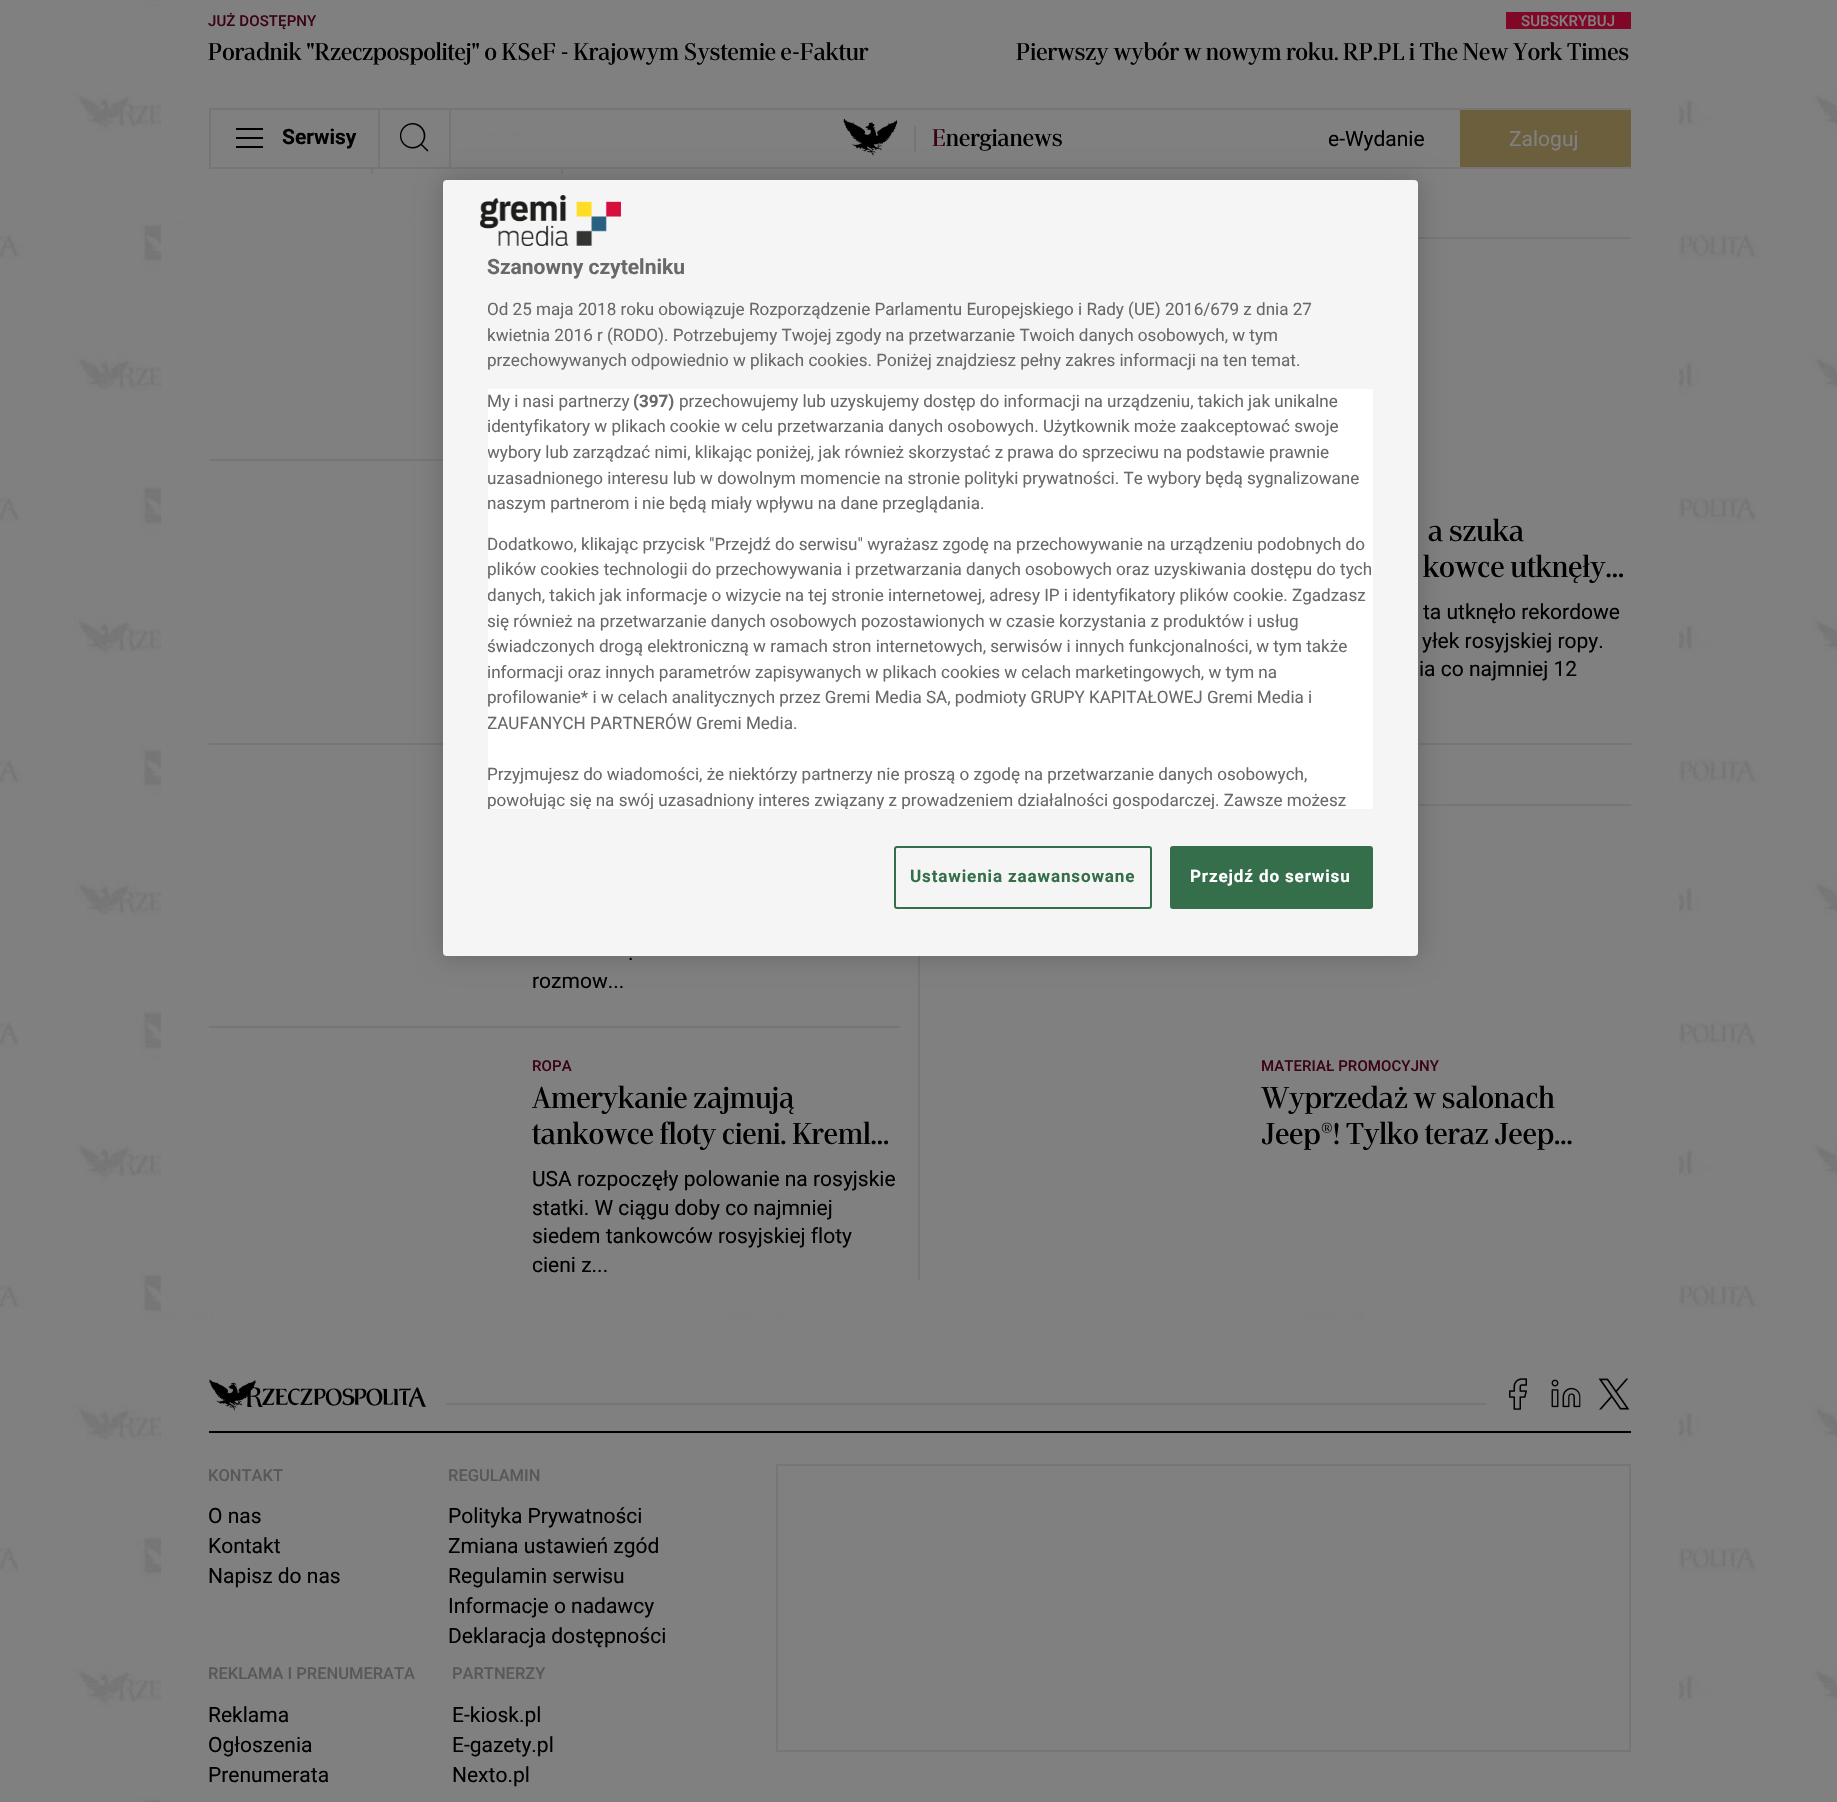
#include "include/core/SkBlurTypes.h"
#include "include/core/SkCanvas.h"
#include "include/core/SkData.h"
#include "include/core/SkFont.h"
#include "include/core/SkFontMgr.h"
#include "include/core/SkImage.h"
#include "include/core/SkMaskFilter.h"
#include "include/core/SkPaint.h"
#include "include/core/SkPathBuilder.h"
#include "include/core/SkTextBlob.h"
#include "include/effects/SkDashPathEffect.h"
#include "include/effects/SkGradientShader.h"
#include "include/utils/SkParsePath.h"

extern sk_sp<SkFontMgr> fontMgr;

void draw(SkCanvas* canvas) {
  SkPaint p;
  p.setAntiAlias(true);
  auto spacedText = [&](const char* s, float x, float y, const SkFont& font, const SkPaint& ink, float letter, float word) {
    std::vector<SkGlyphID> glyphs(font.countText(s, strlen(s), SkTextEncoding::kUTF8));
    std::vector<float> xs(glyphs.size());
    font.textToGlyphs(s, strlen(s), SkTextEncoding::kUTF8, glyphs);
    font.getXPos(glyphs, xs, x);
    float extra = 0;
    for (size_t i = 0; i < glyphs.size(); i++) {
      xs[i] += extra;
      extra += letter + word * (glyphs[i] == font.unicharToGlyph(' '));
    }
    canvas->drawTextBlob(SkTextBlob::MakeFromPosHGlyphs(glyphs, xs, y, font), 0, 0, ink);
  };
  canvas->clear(SK_ColorWHITE);
  canvas->drawImageRect(SkImages::DeferredFromEncodedData(SkData::MakeFromFileName("images/1.png")), SkRect::MakeLTRB(0, 0, 1837, 1802), SkSamplingOptions());
  p.setColor(SkColorSetRGB(128, 128, 128));
  canvas->drawRect(SkRect::MakeLTRB(161, 0, 1679, 132), p);
  p.setColor(SkColorSetRGB(128, 7, 37));
  canvas->drawRect(SkRect::MakeLTRB(1506, 12, 1631, 29), p);
  p.setColor(SkColorSetRGB(118, 118, 118));
  canvas->drawRect(SkRect::MakeLTRB(209, 108, 1631, 110), p);
  canvas->drawRect(SkRect::MakeLTRB(209, 167, 1631, 169), p);
  canvas->drawRect(SkRect::MakeLTRB(378, 110, 380, 167), p);
  canvas->drawRect(SkRect::MakeLTRB(209, 110, 211, 167), p);
  p.setColor(SK_ColorBLACK);
  canvas->drawRect(SkRect::MakeLTRB(236, 128, 263, 130), p);
  canvas->drawRect(SkRect::MakeLTRB(236, 137, 263, 139), p);
  canvas->drawRect(SkRect::MakeLTRB(236, 146, 263, 148), p);
  p.setColor(SkColorSetRGB(118, 118, 118));
  canvas->drawRect(SkRect::MakeLTRB(449, 110, 451, 167), p);
  canvas->drawImageRect(SkImages::DeferredFromEncodedData(SkData::MakeFromFileName("images/2.png")), SkRect::MakeLTRB(399, 123, 429, 152), SkSamplingOptions());
  canvas->drawImageRect(SkImages::DeferredFromEncodedData(SkData::MakeFromFileName("images/3.png")), SkRect::MakeLTRB(843, 118, 898, 156), SkSamplingOptions());
  canvas->drawRect(SkRect::MakeLTRB(914, 126, 916, 152), p);
  p.setColor(SkColorSetRGB(108, 95, 62));
  canvas->drawRect(SkRect::MakeLTRB(1460, 110, 1631, 167), p);
  p.setColor(SkColorSetRGB(128, 128, 128));
  canvas->drawRect(SkRect::MakeLTRB(161, 224, 1679, 1310), p);
  p.setColor(SkColorSetRGB(118, 118, 118));
  canvas->drawRect(SkRect::MakeLTRB(371, 169, 373, 174), p);
  canvas->drawRect(SkRect::MakeLTRB(561, 169, 563, 174), p);
  canvas->drawRect(SkRect::MakeLTRB(1418, 237, 1631, 239), p);
  canvas->drawRect(SkRect::MakeLTRB(209, 459, 443, 461), p);
  canvas->drawRect(SkRect::MakeLTRB(1418, 743, 1631, 745), p);
  canvas->drawRect(SkRect::MakeLTRB(209, 743, 443, 745), p);
  canvas->drawRect(SkRect::MakeLTRB(1418, 804, 1631, 806), p);
  canvas->drawRect(SkRect::MakeLTRB(918, 956, 920, 1280), p);
  canvas->drawRect(SkRect::MakeLTRB(209, 1026, 900, 1028), p);
  p.setColor(SkColorSetRGB(128, 128, 128));
  canvas->drawRect(SkRect::MakeLTRB(161, 1310, 1384, 1314), p);
  canvas->drawRect(SkRect::MakeLTRB(161, 1406, 1679, 1802), p);
  canvas->drawImageRect(SkImages::DeferredFromEncodedData(SkData::MakeFromFileName("images/4.png")), SkRect::MakeLTRB(209, 1379, 427, 1411), SkSamplingOptions());
  p.setColor(SkColorSetRGB(118, 118, 118));
  canvas->drawRect(SkRect::MakeLTRB(446, 1403, 1487, 1405), p);
  canvas->drawImageRect(SkImages::DeferredFromEncodedData(SkData::MakeFromFileName("images/5.png")), SkRect::MakeLTRB(1509, 1378, 1527, 1410), SkSamplingOptions());
  canvas->drawImageRect(SkImages::DeferredFromEncodedData(SkData::MakeFromFileName("images/6.png")), SkRect::MakeLTRB(1551, 1379, 1581, 1408), SkSamplingOptions());
  canvas->drawImageRect(SkImages::DeferredFromEncodedData(SkData::MakeFromFileName("images/7.png")), SkRect::MakeLTRB(1598, 1378, 1630, 1410), SkSamplingOptions());
  p.setColor(SK_ColorBLACK);
  canvas->drawRect(SkRect::MakeLTRB(209, 1431, 1631, 1433), p);
  p.setStyle(SkPaint::kStroke_Style);
  p.setStrokeWidth(2);
  p.setColor(SkColorSetRGB(118, 118, 118));
  canvas->drawRect(SkRect::MakeLTRB(777, 1465, 1630, 1751), p);
  p.setStyle(SkPaint::kFill_Style);
  p.setColor(SkColorSetARGB(51, 0, 0, 0));
  p.setMaskFilter(SkMaskFilter::MakeBlur(kNormal_SkBlurStyle, 13.5f));
  canvas->drawRoundRect(SkRect::MakeLTRB(443, 180, 1418, 956), 4, 4, p);
  p.setMaskFilter(nullptr);
  p.setColor(SkColorSetRGB(245, 245, 245));
  canvas->drawRoundRect(SkRect::MakeLTRB(443, 180, 1418, 956), 4, 4, p);
  canvas->drawImageRect(SkImages::DeferredFromEncodedData(SkData::MakeFromFileName("images/8.png")), SkRect::MakeLTRB(480, 195, 621, 246), SkSamplingOptions());
  p.setColor(SK_ColorWHITE);
  canvas->drawRect(SkRect::MakeLTRB(488, 389, 1373, 809), p);
  p.setStyle(SkPaint::kStroke_Style);
  p.setColor(SkColorSetRGB(52, 110, 74));
  canvas->drawRoundRect(SkRect::MakeLTRB(895, 847, 1151, 908), 2, 2, p);
  p.setStyle(SkPaint::kFill_Style);
  canvas->drawRoundRect(SkRect::MakeLTRB(1171, 847, 1372, 908), 2, 2, p);
  p.setStyle(SkPaint::kStroke_Style);
  canvas->drawRoundRect(SkRect::MakeLTRB(1171, 847, 1372, 908), 2, 2, p);
  SkFont font1(fontMgr->matchFamilyStyle("Roboto", SkFontStyle(500, SkFontStyle::kNormal_Width, SkFontStyle::kUpright_Slant)), 15);
  font1.setSubpixel(true);
  p.setStyle(SkPaint::kFill_Style);
  p.setColor(SkColorSetRGB(59, 3, 23));
  spacedText("JUŻ DOSTĘPNY", 208, 26, font1, p, 0.1f, 0);
  SkFont font2(fontMgr->matchFamilyStyle("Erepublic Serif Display", SkFontStyle(600, SkFontStyle::kNormal_Width, SkFontStyle::kUpright_Slant)), 24);
  font2.setSubpixel(true);
  p.setColor(SK_ColorBLACK);
  canvas->drawString("Poradnik \"Rzeczpospolitej\" o KSeF - Krajowym Systemie e-Faktur", 208, 60, font2, p);
  p.setColor(SkColorSetRGB(128, 128, 128));
  spacedText("SUBSKRYBUJ", 1521, 26, font1, p, 0.1f, 0);
  p.setColor(SK_ColorBLACK);
  canvas->drawString("Pierwszy wybór w nowym roku. RP.PL i The New York Times", 1016, 60, font2, p);
  SkFont font3(fontMgr->matchFamilyStyle("Roboto", SkFontStyle::Bold()), 21);
  font3.setSubpixel(true);
  canvas->drawString("Serwisy", 282, 144, font3, p);
  p.setColor(SkColorSetRGB(59, 3, 23));
  canvas->drawString("E", 932, 146, font2, p);
  p.setColor(SK_ColorBLACK);
  canvas->drawString("nergianews", 946, 146, font2, p);
  SkFont font4(fontMgr->matchFamilyStyle("Roboto", SkFontStyle::Normal()), 21);
  font4.setSubpixel(true);
  canvas->drawString("e-Wydanie", 1328, 146, font4, p);
  p.setColor(SkColorSetRGB(128, 128, 128));
  canvas->drawString("Zaloguj", 1509, 146, font4, p);
  SkFont font5(fontMgr->matchFamilyStyle("Erepublic Serif Display", SkFontStyle(600, SkFontStyle::kNormal_Width, SkFontStyle::kUpright_Slant)), 30);
  font5.setSubpixel(true);
  p.setColor(SK_ColorBLACK);
  spacedText("a szuka", 1428, 541, font5, p, 0.15f, 0);
  spacedText("kowce utknęły…", 1423, 577, font5, p, 0.15f, 0);
  canvas->drawString("ta utknęło rekordowe", 1423, 619, font4, p);
  canvas->drawString("yłek rosyjskiej ropy.", 1422, 648, font4, p);
  canvas->drawString("ia co najmniej 12", 1419, 676, font4, p);
  canvas->drawString(".", 628, 960, font4, p);
  canvas->drawString("rozmow...", 532, 988, font4, p);
  p.setColor(SkColorSetRGB(59, 3, 23));
  spacedText("ROPA", 532, 1071, font1, p, 0.1f, 0);
  p.setColor(SK_ColorBLACK);
  spacedText("Amerykanie zajmują", 532, 1108, font5, p, 0.15f, 0);
  spacedText("tankowce floty cieni. Kreml…", 532, 1144, font5, p, 0.15f, 0);
  canvas->drawString("USA rozpoczęły polowanie na rosyjskie", 532, 1186, font4, p);
  canvas->drawString("statki. W ciągu doby co najmniej", 532, 1215, font4, p);
  canvas->drawString("siedem tankowców rosyjskiej floty", 532, 1243, font4, p);
  canvas->drawString("cieni z...", 532, 1272, font4, p);
  p.setColor(SkColorSetRGB(59, 3, 23));
  spacedText("MATERIAŁ PROMOCYJNY", 1261, 1071, font1, p, 0.1f, 0);
  p.setColor(SK_ColorBLACK);
  spacedText("Wyprzedaż w salonach", 1261, 1108, font5, p, 0.15f, 0);
  canvas->save();
  canvas->clipRect(SkRect::MakeLTRB(1262, 1082, 1631, 1154));
  spacedText("Jeep®! Tylko teraz Jeep…", 1261, 1144, font5, p, 0.15f, 0);
  canvas->restore();
  SkFont font6(fontMgr->matchFamilyStyle("Roboto", SkFontStyle(500, SkFontStyle::kNormal_Width, SkFontStyle::kUpright_Slant)), 16.5f);
  font6.setSubpixel(true);
  p.setColor(SkColorSetRGB(88, 88, 88));
  canvas->drawString("KONTAKT", 208, 1481, font6, p);
  p.setColor(SK_ColorBLACK);
  canvas->drawString("O nas", 208, 1523, font4, p);
  canvas->drawString("Kontakt", 208, 1553, font4, p);
  canvas->drawString("Napisz do nas", 208, 1583, font4, p);
  p.setColor(SkColorSetRGB(88, 88, 88));
  canvas->drawString("REGULAMIN", 448, 1481, font6, p);
  p.setColor(SK_ColorBLACK);
  canvas->drawString("Polityka Prywatności", 448, 1523, font4, p);
  canvas->drawString("Zmiana ustawień zgód", 448, 1553, font4, p);
  canvas->drawString("Regulamin serwisu", 448, 1583, font4, p);
  canvas->drawString("Informacje o nadawcy", 448, 1613, font4, p);
  canvas->drawString("Deklaracja dostępności", 448, 1643, font4, p);
  p.setColor(SkColorSetRGB(88, 88, 88));
  canvas->drawString("REKLAMA I PRENUMERATA", 208, 1679, font6, p);
  p.setColor(SK_ColorBLACK);
  canvas->drawString("Reklama", 208, 1722, font4, p);
  canvas->drawString("Ogłoszenia", 208, 1752, font4, p);
  canvas->drawString("Prenumerata", 208, 1782, font4, p);
  p.setColor(SkColorSetRGB(88, 88, 88));
  canvas->drawString("PARTNERZY", 452, 1679, font6, p);
  p.setColor(SK_ColorBLACK);
  canvas->drawString("E-kiosk.pl", 452, 1722, font4, p);
  canvas->drawString("E-gazety.pl", 452, 1752, font4, p);
  canvas->drawString("Nexto.pl", 452, 1782, font4, p);
  p.setColor(SkColorSetRGB(105, 105, 105));
  canvas->drawString("Szanowny czytelniku", 487, 274, font3, p);
  SkFont font7(fontMgr->matchFamilyStyle("Roboto", SkFontStyle::Normal()), 17.07f);
  font7.setSubpixel(true);
  canvas->drawString("Od 25 maja 2018 roku obowiązuje Rozporządzenie Parlamentu Europejskiego i Rady (UE) 2016/679 z dnia 27", 487, 315, font7, p);
  canvas->drawString("kwietnia 2016 r (RODO). Potrzebujemy Twojej zgody na przetwarzanie Twoich danych osobowych, w tym", 487, 341, font7, p);
  canvas->drawString("przechowywanych odpowiednio w plikach cookies. Poniżej znajdziesz pełny zakres informacji na ten temat.", 487, 366, font7, p);
  canvas->drawString("My i nasi partnerzy", 487, 407, font7, p);
  SkFont font8(fontMgr->matchFamilyStyle("Roboto", SkFontStyle::Bold()), 17.07f);
  font8.setSubpixel(true);
  canvas->drawString("(397)", 633, 407, font8, p);
  canvas->drawString("przechowujemy lub uzyskujemy dostęp do informacji na urządzeniu, takich jak unikalne", 679, 407, font7, p);
  canvas->drawString("identyfikatory w plikach cookie w celu przetwarzania danych osobowych. Użytkownik może zaakceptować swoje", 487, 432, font7, p);
  canvas->save();
  canvas->clipRect(SkRect::MakeLTRB(488, 389, 1373, 809));
  canvas->drawString("wybory lub zarządzać nimi, klikając poniżej, jak również skorzystać z prawa do sprzeciwu na podstawie prawnie", 487, 458, font7, p);
  canvas->drawString("uzasadnionego interesu lub w dowolnym momencie na stronie polityki prywatności. Te wybory będą sygnalizowane", 487, 484, font7, p);
  canvas->drawString("naszym partnerom i nie będą miały wpływu na dane przeglądania.", 487, 509, font7, p);
  canvas->restore();
  canvas->drawString("Dodatkowo, klikając przycisk \"Przejdź do serwisu\" wyrażasz zgodę na przechowywanie na urządzeniu podobnych do", 487, 550, font7, p);
  canvas->save();
  canvas->clipRect(SkRect::MakeLTRB(488, 389, 1373, 809));
  canvas->drawString("plików cookies technologii do przechowywania i przetwarzania danych osobowych oraz uzyskiwania dostępu do tych", 487, 575, font7, p);
  canvas->drawString("danych, takich jak informacje o wizycie na tej stronie internetowej, adresy IP i identyfikatory plików cookie. Zgadzasz", 487, 601, font7, p);
  canvas->drawString("się również na przetwarzanie danych osobowych pozostawionych w czasie korzystania z produktów i usług", 487, 627, font7, p);
  canvas->drawString("świadczonych drogą elektroniczną w ramach stron internetowych, serwisów i innych funkcjonalności, w tym także", 487, 652, font7, p);
  canvas->restore();
  canvas->drawString("informacji oraz innych parametrów zapisywanych w plikach cookies w celach marketingowych, w tym na", 487, 678, font7, p);
  canvas->save();
  canvas->clipRect(SkRect::MakeLTRB(488, 389, 1373, 809));
  canvas->drawString("profilowanie* i w celach analitycznych przez Gremi Media SA, podmioty GRUPY KAPITAŁOWEJ Gremi Media i", 487, 703, font7, p);
  canvas->drawString("ZAUFANYCH PARTNERÓW Gremi Media.", 487, 729, font7, p);
  canvas->restore();
  canvas->drawString("Przyjmujesz do wiadomości, że niektórzy partnerzy nie proszą o zgodę na przetwarzanie danych osobowych,", 487, 780, font7, p);
  canvas->save();
  canvas->clipRect(SkRect::MakeLTRB(488, 389, 1373, 809));
  canvas->drawString("powołując się na swój uzasadniony interes związany z prowadzeniem działalności gospodarczej. Zawsze możesz", 487, 806, font7, p);
  canvas->restore();
  p.setColor(SkColorSetRGB(52, 110, 74));
  spacedText("Ustawienia zaawansowane", 910, 882, font8, p, 0.85f, 0);
  p.setColor(SK_ColorWHITE);
  spacedText("Przejdź do serwisu", 1190, 882, font8, p, 0.85f, 0);
}
